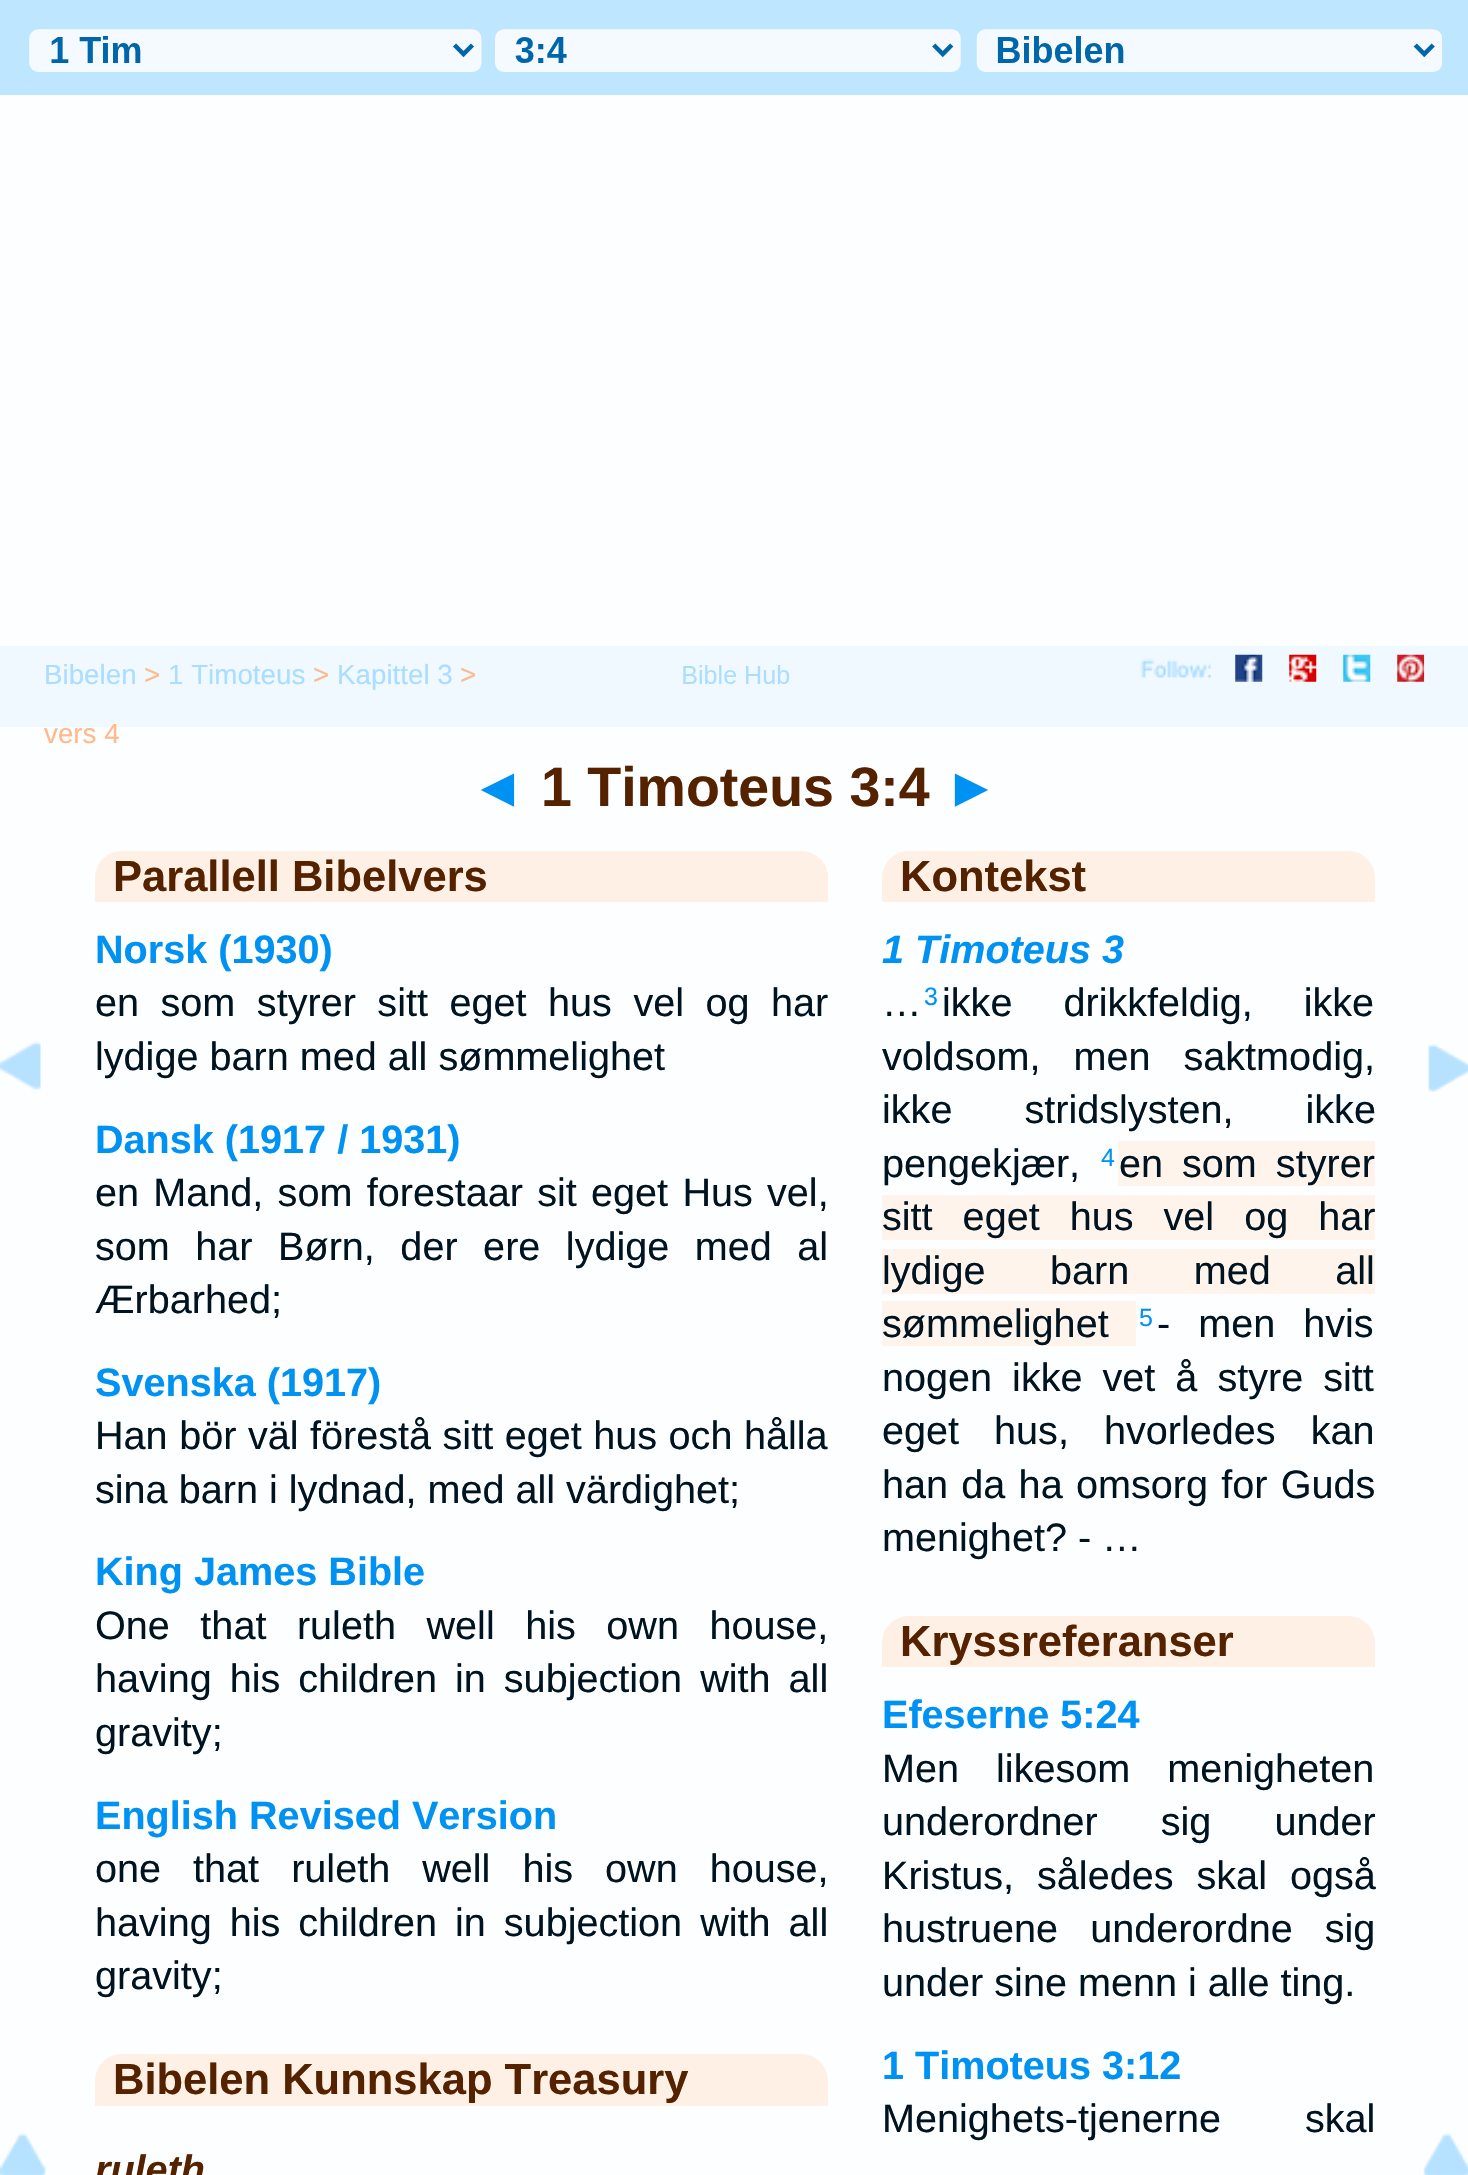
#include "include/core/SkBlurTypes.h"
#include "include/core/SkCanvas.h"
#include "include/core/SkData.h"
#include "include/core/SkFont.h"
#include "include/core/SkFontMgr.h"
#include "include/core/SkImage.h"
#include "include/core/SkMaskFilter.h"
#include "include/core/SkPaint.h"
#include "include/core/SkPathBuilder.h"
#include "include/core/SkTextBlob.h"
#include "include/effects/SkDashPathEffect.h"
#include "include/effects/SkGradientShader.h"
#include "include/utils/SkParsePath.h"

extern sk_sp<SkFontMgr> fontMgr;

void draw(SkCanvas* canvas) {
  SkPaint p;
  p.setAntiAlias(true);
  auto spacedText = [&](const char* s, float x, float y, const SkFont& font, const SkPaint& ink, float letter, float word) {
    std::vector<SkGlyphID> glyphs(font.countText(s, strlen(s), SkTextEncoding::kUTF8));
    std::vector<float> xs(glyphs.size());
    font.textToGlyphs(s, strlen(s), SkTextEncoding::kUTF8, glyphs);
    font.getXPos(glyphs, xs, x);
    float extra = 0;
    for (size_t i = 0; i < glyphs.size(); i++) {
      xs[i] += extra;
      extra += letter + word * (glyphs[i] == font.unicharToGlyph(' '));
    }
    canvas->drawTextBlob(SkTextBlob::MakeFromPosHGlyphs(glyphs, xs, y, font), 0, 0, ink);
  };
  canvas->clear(SkColorSetRGB(253, 254, 255));
  canvas->save();
  canvas->clipPath(SkPathBuilder(SkPathFillType::kEvenOdd).moveTo(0, 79).lineTo(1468, 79).lineTo(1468, 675).lineTo(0, 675).close().moveTo(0, 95).lineTo(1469, 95).lineTo(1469, 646).lineTo(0, 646).close().detach(), true);
  p.setColor(SkColorSetRGB(198, 232, 255));
  p.setMaskFilter(SkMaskFilter::MakeBlur(kNormal_SkBlurStyle, 7));
  canvas->drawRect(SkRect::MakeLTRB(0, 101, 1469, 653), p);
  p.setMaskFilter(nullptr);
  canvas->restore();
  p.setColor(SkColorSetRGB(191, 230, 255));
  canvas->drawRect(SkRect::MakeLTRB(0, 0, 1468, 95), p);
  canvas->drawImageRect(SkImages::DeferredFromEncodedData(SkData::MakeFromFileName("images/1.png")), SkRect::MakeLTRB(29, 29, 1442, 72), SkSamplingOptions());
  p.setColor(SkColorSetRGB(240, 249, 255));
  canvas->drawRect(SkRect::MakeLTRB(0, 646, 1468, 727), p);
  canvas->drawImageRect(SkImages::DeferredFromEncodedData(SkData::MakeFromFileName("images/2.png")), SkRect::MakeLTRB(683, 665, 790, 684), SkSamplingOptions());
  canvas->drawImageRect(SkImages::DeferredFromEncodedData(SkData::MakeFromFileName("images/3.png")), SkRect::MakeLTRB(1140, 654, 1425, 682), SkSamplingOptions());
  canvas->drawImageRect(SkImages::DeferredFromEncodedData(SkData::MakeFromFileName("images/4.png")), SkRect::MakeLTRB(0, 1041, 41, 1090), SkSamplingOptions());
  p.setColor(SkColorSetRGB(255, 240, 230));
  canvas->drawPath(SkPathBuilder().moveTo(122, 851).lineTo(801, 851).cubicTo(816, 851, 828, 863, 828, 878).lineTo(828, 902).lineTo(95, 902).lineTo(95, 878).cubicTo(95, 863, 107, 851, 122, 851).close().detach(), p);
  canvas->drawPath(SkPathBuilder().moveTo(122, 2054).lineTo(801, 2054).cubicTo(816, 2054, 828, 2066, 828, 2081).lineTo(828, 2106).lineTo(95, 2106).lineTo(95, 2081).cubicTo(95, 2066, 107, 2054, 122, 2054).close().detach(), p);
  canvas->drawPath(SkPathBuilder().moveTo(909, 851).lineTo(1348, 851).cubicTo(1363, 851, 1375, 863, 1375, 878).lineTo(1375, 902).lineTo(882, 902).lineTo(882, 878).cubicTo(882, 863, 894, 851, 909, 851).close().detach(), p);
  p.setColor(SkColorSetRGB(255, 244, 236));
  canvas->drawRect(SkRect::MakeLTRB(1118, 1141, 1375, 1186), p);
  canvas->drawRect(SkRect::MakeLTRB(882, 1195, 1375, 1240), p);
  canvas->drawRect(SkRect::MakeLTRB(882, 1249, 1375, 1294), p);
  canvas->drawRect(SkRect::MakeLTRB(882, 1301, 1136, 1346), p);
  p.setColor(SkColorSetRGB(255, 240, 230));
  canvas->drawPath(SkPathBuilder().moveTo(909, 1616).lineTo(1348, 1616).cubicTo(1363, 1616, 1375, 1628, 1375, 1643).lineTo(1375, 1667).lineTo(882, 1667).lineTo(882, 1643).cubicTo(882, 1628, 894, 1616, 909, 1616).close().detach(), p);
  canvas->drawImageRect(SkImages::DeferredFromEncodedData(SkData::MakeFromFileName("images/5.png")), SkRect::MakeLTRB(1428, 1044, 1468, 1092), SkSamplingOptions());
  canvas->drawImageRect(SkImages::DeferredFromEncodedData(SkData::MakeFromFileName("images/6.png")), SkRect::MakeLTRB(0, 2133, 46, 2175), SkSamplingOptions());
  canvas->drawImageRect(SkImages::DeferredFromEncodedData(SkData::MakeFromFileName("images/7.png")), SkRect::MakeLTRB(1423, 2133, 1468, 2175), SkSamplingOptions());
  SkFont font1(fontMgr->matchFamilyStyle("Liberation Sans", SkFontStyle::Normal()), 27.75f);
  font1.setSubpixel(true);
  p.setColor(SkColorSetRGB(170, 221, 255));
  canvas->drawString("Bibelen", 44, 684, font1, p);
  p.setColor(SkColorSetRGB(255, 185, 138));
  canvas->drawString(">", 144, 684, font1, p);
  p.setColor(SkColorSetRGB(170, 221, 255));
  canvas->drawString("1 Timoteus", 168, 684, font1, p);
  p.setColor(SkColorSetRGB(255, 185, 138));
  canvas->drawString(">", 313, 684, font1, p);
  p.setColor(SkColorSetRGB(170, 221, 255));
  canvas->drawString("Kapittel 3", 337, 684, font1, p);
  p.setColor(SkColorSetRGB(255, 185, 138));
  canvas->drawString(">", 460, 684, font1, p);
  canvas->drawString("vers 4", 44, 743, font1, p);
  SkFont font2(fontMgr->matchFamilyStyle("Liberation Sans", SkFontStyle::Bold()), 55.5f);
  font2.setSubpixel(true);
  p.setColor(SkColorSetRGB(0, 146, 242));
  canvas->drawString("◄", 470, 806, font2, p);
  p.setColor(SkColorSetRGB(85, 34, 0));
  canvas->drawString("1 Timoteus 3:4", 541, 806, font2, p);
  p.setColor(SkColorSetRGB(0, 146, 242));
  canvas->drawString("►", 944, 806, font2, p);
  SkFont font3(fontMgr->matchFamilyStyle("Liberation Sans", SkFontStyle::Bold()), 43.5f);
  font3.setSubpixel(true);
  p.setColor(SkColorSetRGB(85, 34, 0));
  canvas->drawString("Parallell Bibelvers", 113, 891, font3, p);
  SkFont font4(fontMgr->matchFamilyStyle("Liberation Sans", SkFontStyle::Bold()), 39.6f);
  font4.setSubpixel(true);
  p.setColor(SkColorSetRGB(0, 146, 242));
  canvas->drawString("Norsk (1930)", 95, 963, font4, p);
  SkFont font5(fontMgr->matchFamilyStyle("Liberation Sans", SkFontStyle::Normal()), 39.6f);
  font5.setSubpixel(true);
  p.setColor(SkColorSetRGB(0, 19, 32));
  spacedText("en som styrer sitt eget hus vel og har", 95, 1016, font5, p, 0, 10.5f);
  canvas->drawString("lydige barn med all sømmelighet", 95, 1070, font5, p);
  p.setColor(SkColorSetRGB(0, 146, 242));
  canvas->drawString("Dansk (1917 / 1931)", 95, 1153, font4, p);
  p.setColor(SkColorSetRGB(0, 19, 32));
  spacedText("en Mand, som forestaar sit eget Hus vel,", 95, 1206, font5, p, 0, 3.25f);
  spacedText("som har Børn, der ere lydige med al", 95, 1260, font5, p, 0, 14.5f);
  canvas->drawString("Ærbarhed;", 95, 1313, font5, p);
  p.setColor(SkColorSetRGB(0, 146, 242));
  canvas->drawString("Svenska (1917)", 95, 1396, font4, p);
  p.setColor(SkColorSetRGB(0, 19, 32));
  spacedText("Han bör väl förestå sitt eget hus och hålla", 95, 1449, font5, p, 0, 0.5f);
  canvas->drawString("sina barn i lydnad, med all värdighet;", 95, 1503, font5, p);
  p.setColor(SkColorSetRGB(0, 146, 242));
  canvas->drawString("King James Bible", 95, 1585, font4, p);
  p.setColor(SkColorSetRGB(0, 19, 32));
  spacedText("One that ruleth well his own house,", 95, 1639, font5, p, 0, 19.5f);
  spacedText("having his children in subjection with all", 95, 1692, font5, p, 0, 7);
  canvas->drawString("gravity;", 95, 1746, font5, p);
  p.setColor(SkColorSetRGB(0, 146, 242));
  canvas->drawString("English Revised Version", 95, 1829, font4, p);
  p.setColor(SkColorSetRGB(0, 19, 32));
  spacedText("one that ruleth well his own house,", 95, 1882, font5, p, 0, 21);
  spacedText("having his children in subjection with all", 95, 1936, font5, p, 0, 7);
  canvas->drawString("gravity;", 95, 1989, font5, p);
  p.setColor(SkColorSetRGB(85, 34, 0));
  canvas->drawString("Bibelen Kunnskap Treasury", 113, 2094, font3, p);
  SkFont font6(fontMgr->matchFamilyStyle("Liberation Sans", SkFontStyle::BoldItalic()), 39.6f);
  font6.setSubpixel(true);
  canvas->drawString("ruleth", 95, 2183, font6, p);
  canvas->drawString("Kontekst", 900, 891, font3, p);
  p.setColor(SkColorSetRGB(0, 146, 242));
  canvas->drawString("1 Timoteus 3", 882, 963, font6, p);
  p.setColor(SkColorSetRGB(0, 19, 32));
  canvas->drawString("…", 882, 1016, font5, p);
  SkFont font7(fontMgr->matchFamilyStyle("Liberation Sans", SkFontStyle::Normal()), 25);
  font7.setSubpixel(true);
  p.setColor(SkColorSetRGB(0, 146, 242));
  canvas->drawString("3", 924, 1005, font7, p);
  p.setColor(SkColorSetRGB(0, 19, 32));
  spacedText("ikke drikkfeldig, ikke", 942, 1016, font5, p, 0, 40);
  spacedText("voldsom, men saktmodig,", 882, 1070, font5, p, 0, 22);
  spacedText("ikke stridslysten, ikke", 882, 1123, font5, p, 0, 61);
  canvas->drawString("pengekjær,", 882, 1177, font5, p);
  p.setColor(SkColorSetRGB(0, 146, 242));
  canvas->drawString("4", 1101, 1166, font7, p);
  p.setColor(SkColorSetRGB(0, 19, 32));
  spacedText("en som styrer", 1119, 1177, font5, p, 0, 8);
  spacedText("sitt eget hus vel og har", 882, 1230, font5, p, 0, 19);
  spacedText("lydige barn med all", 882, 1284, font5, p, 0, 53.5f);
  canvas->drawString("sømmelighet", 882, 1337, font5, p);
  p.setColor(SkColorSetRGB(0, 146, 242));
  canvas->drawString("5", 1139, 1326, font7, p);
  p.setColor(SkColorSetRGB(0, 19, 32));
  spacedText("- men hvis", 1157, 1337, font5, p, 0, 17);
  spacedText("nogen ikke vet å styre sitt", 882, 1391, font5, p, 0, 9);
  spacedText("eget hus, hvorledes kan", 882, 1444, font5, p, 0, 24);
  spacedText("han da ha omsorg for Guds", 882, 1498, font5, p, 0, 2.25f);
  canvas->drawString("menighet? - …", 882, 1551, font5, p);
  p.setColor(SkColorSetRGB(85, 34, 0));
  canvas->drawString("Kryssreferanser", 900, 1656, font3, p);
  p.setColor(SkColorSetRGB(0, 146, 242));
  canvas->drawString("Efeserne 5:24", 882, 1728, font4, p);
  p.setColor(SkColorSetRGB(0, 19, 32));
  spacedText("Men likesom menigheten", 882, 1782, font5, p, 0, 26);
  spacedText("underordner sig under", 882, 1835, font5, p, 0, 52);
  spacedText("Kristus, således skal også", 882, 1889, font5, p, 0, 12);
  spacedText("hustruene underordne sig", 882, 1942, font5, p, 0, 21);
  canvas->drawString("under sine menn i alle ting.", 882, 1996, font5, p);
  p.setColor(SkColorSetRGB(0, 146, 242));
  canvas->drawString("1 Timoteus 3:12", 882, 2079, font4, p);
  p.setColor(SkColorSetRGB(0, 19, 32));
  spacedText("Menighets-tjenerne skal", 882, 2132, font5, p, 0, 73);
}
